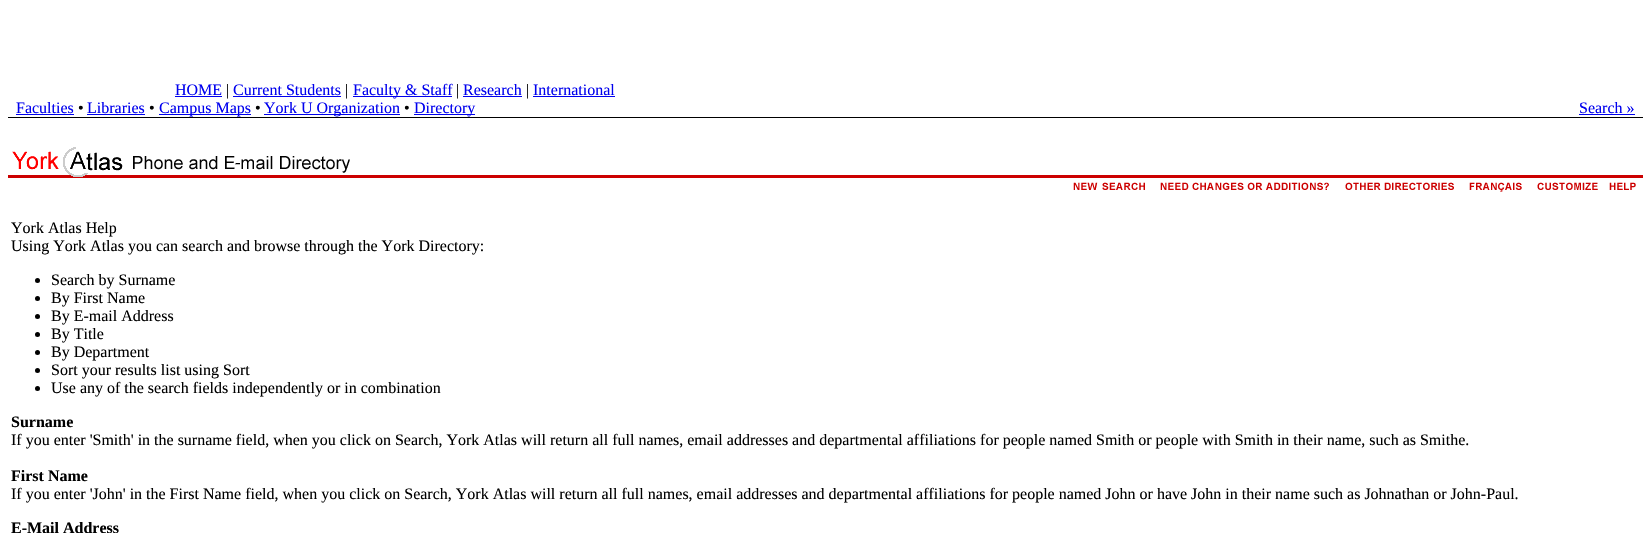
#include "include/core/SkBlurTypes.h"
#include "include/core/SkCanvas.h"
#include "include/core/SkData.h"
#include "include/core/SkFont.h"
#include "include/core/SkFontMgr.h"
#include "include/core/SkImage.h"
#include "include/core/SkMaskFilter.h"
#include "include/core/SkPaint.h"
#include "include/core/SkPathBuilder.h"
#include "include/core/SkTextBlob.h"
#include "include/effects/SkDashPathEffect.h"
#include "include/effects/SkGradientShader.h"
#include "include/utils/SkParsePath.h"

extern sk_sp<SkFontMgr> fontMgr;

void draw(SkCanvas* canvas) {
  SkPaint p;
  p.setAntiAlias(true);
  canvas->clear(SK_ColorWHITE);
  p.setColor(SkColorSetRGB(0, 0, 238));
  canvas->drawRect(SkRect::MakeLTRB(175, 96, 222, 97), p);
  canvas->drawRect(SkRect::MakeLTRB(233, 96, 341, 97), p);
  canvas->drawRect(SkRect::MakeLTRB(353, 96, 452, 97), p);
  canvas->drawRect(SkRect::MakeLTRB(463, 96, 522, 97), p);
  canvas->drawRect(SkRect::MakeLTRB(533, 96, 615, 97), p);
  canvas->drawRect(SkRect::MakeLTRB(16, 114, 74, 115), p);
  canvas->drawRect(SkRect::MakeLTRB(87, 114, 145, 115), p);
  canvas->drawRect(SkRect::MakeLTRB(159, 114, 251, 115), p);
  canvas->drawRect(SkRect::MakeLTRB(264, 114, 400, 115), p);
  canvas->drawRect(SkRect::MakeLTRB(414, 114, 475, 115), p);
  canvas->drawRect(SkRect::MakeLTRB(1579, 114, 1635, 115), p);
  p.setColor(SK_ColorBLACK);
  canvas->drawRect(SkRect::MakeLTRB(8, 117, 1643, 118), p);
  p.setColor(SkColorSetRGB(204, 0, 0));
  canvas->drawRect(SkRect::MakeLTRB(8, 175, 1643, 178), p);
  canvas->drawImageRect(SkImages::DeferredFromEncodedData(SkData::MakeFromFileName("images/1.png")), SkRect::MakeLTRB(12, 147, 350, 177), SkSamplingOptions());
  canvas->drawImageRect(SkImages::DeferredFromEncodedData(SkData::MakeFromFileName("images/2.png")), SkRect::MakeLTRB(1073, 182, 1145, 190), SkSamplingOptions());
  canvas->drawImageRect(SkImages::DeferredFromEncodedData(SkData::MakeFromFileName("images/3.png")), SkRect::MakeLTRB(1160, 182, 1329, 190), SkSamplingOptions());
  canvas->drawImageRect(SkImages::DeferredFromEncodedData(SkData::MakeFromFileName("images/4.png")), SkRect::MakeLTRB(1345, 182, 1454, 190), SkSamplingOptions());
  canvas->drawImageRect(SkImages::DeferredFromEncodedData(SkData::MakeFromFileName("images/5.png")), SkRect::MakeLTRB(1469, 182, 1522, 192), SkSamplingOptions());
  canvas->drawImageRect(SkImages::DeferredFromEncodedData(SkData::MakeFromFileName("images/6.png")), SkRect::MakeLTRB(1537, 182, 1598, 190), SkSamplingOptions());
  canvas->drawImageRect(SkImages::DeferredFromEncodedData(SkData::MakeFromFileName("images/7.png")), SkRect::MakeLTRB(1609, 182, 1636, 190), SkSamplingOptions());
  p.setColor(SK_ColorBLACK);
  canvas->drawCircle(37.5f, 280.5f, 2.5f, p);
  canvas->drawCircle(37.5f, 298.5f, 2.5f, p);
  canvas->drawCircle(37.5f, 316.5f, 2.5f, p);
  canvas->drawCircle(37.5f, 334.5f, 2.5f, p);
  canvas->drawCircle(37.5f, 352.5f, 2.5f, p);
  canvas->drawCircle(37.5f, 370.5f, 2.5f, p);
  canvas->drawCircle(37.5f, 388.5f, 2.5f, p);
  SkFont font1(fontMgr->matchFamilyStyle("Liberation Serif", SkFontStyle::Normal()), 16);
  font1.setSubpixel(true);
  p.setColor(SkColorSetRGB(0, 0, 238));
  canvas->drawString("HOME", 175, 95, font1, p);
  p.setColor(SK_ColorBLACK);
  canvas->drawString("|", 226, 95, font1, p);
  p.setColor(SkColorSetRGB(0, 0, 238));
  canvas->drawString("Current Students", 233, 95, font1, p);
  p.setColor(SK_ColorBLACK);
  canvas->drawString("|", 345, 95, font1, p);
  p.setColor(SkColorSetRGB(0, 0, 238));
  canvas->drawString("Faculty & Staff", 353, 95, font1, p);
  p.setColor(SK_ColorBLACK);
  canvas->drawString("|", 456, 95, font1, p);
  p.setColor(SkColorSetRGB(0, 0, 238));
  canvas->drawString("Research", 463, 95, font1, p);
  p.setColor(SK_ColorBLACK);
  canvas->drawString("|", 526, 95, font1, p);
  p.setColor(SkColorSetRGB(0, 0, 238));
  canvas->drawString("International", 533, 95, font1, p);
  canvas->drawString("Faculties", 16, 113, font1, p);
  p.setColor(SK_ColorBLACK);
  canvas->drawString("•", 78, 113, font1, p);
  p.setColor(SkColorSetRGB(0, 0, 238));
  canvas->drawString("Libraries", 87, 113, font1, p);
  p.setColor(SK_ColorBLACK);
  canvas->drawString("•", 149, 113, font1, p);
  p.setColor(SkColorSetRGB(0, 0, 238));
  canvas->drawString("Campus Maps", 159, 113, font1, p);
  p.setColor(SK_ColorBLACK);
  canvas->drawString("•", 255, 113, font1, p);
  p.setColor(SkColorSetRGB(0, 0, 238));
  canvas->drawString("York U Organization", 264, 113, font1, p);
  p.setColor(SK_ColorBLACK);
  canvas->drawString("•", 404, 113, font1, p);
  p.setColor(SkColorSetRGB(0, 0, 238));
  canvas->drawString("Directory", 414, 113, font1, p);
  canvas->drawString("Search »", 1579, 113, font1, p);
  p.setColor(SK_ColorBLACK);
  canvas->drawString("York Atlas Help", 11, 233, font1, p);
  canvas->drawString("Using York Atlas you can search and browse through the York Directory:", 11, 251, font1, p);
  canvas->drawString("Search by Surname", 51, 285, font1, p);
  canvas->drawString("By First Name", 51, 303, font1, p);
  canvas->drawString("By E-mail Address", 51, 321, font1, p);
  canvas->drawString("By Title", 51, 339, font1, p);
  canvas->drawString("By Department", 51, 357, font1, p);
  canvas->drawString("Sort your results list using Sort", 51, 375, font1, p);
  canvas->drawString("Use any of the search fields independently or in combination", 51, 393, font1, p);
  SkFont font2(fontMgr->matchFamilyStyle("Liberation Serif", SkFontStyle::Bold()), 16);
  font2.setSubpixel(true);
  canvas->drawString("Surname", 11, 427, font2, p);
  canvas->drawString("If you enter 'Smith' in the surname field, when you click on Search, York Atlas will return all full names, email addresses and departmental affiliations for people named Smith or people with Smith in their name, such as Smithe.", 11, 445, font1, p);
  canvas->drawString("First Name", 11, 481, font2, p);
  canvas->drawString("If you enter 'John' in the First Name field, when you click on Search, York Atlas will return all full names, email addresses and departmental affiliations for people named John or have John in their name such as Johnathan or John-Paul.", 11, 499, font1, p);
  canvas->drawString("E-Mail Address", 11, 533, font2, p);
}
